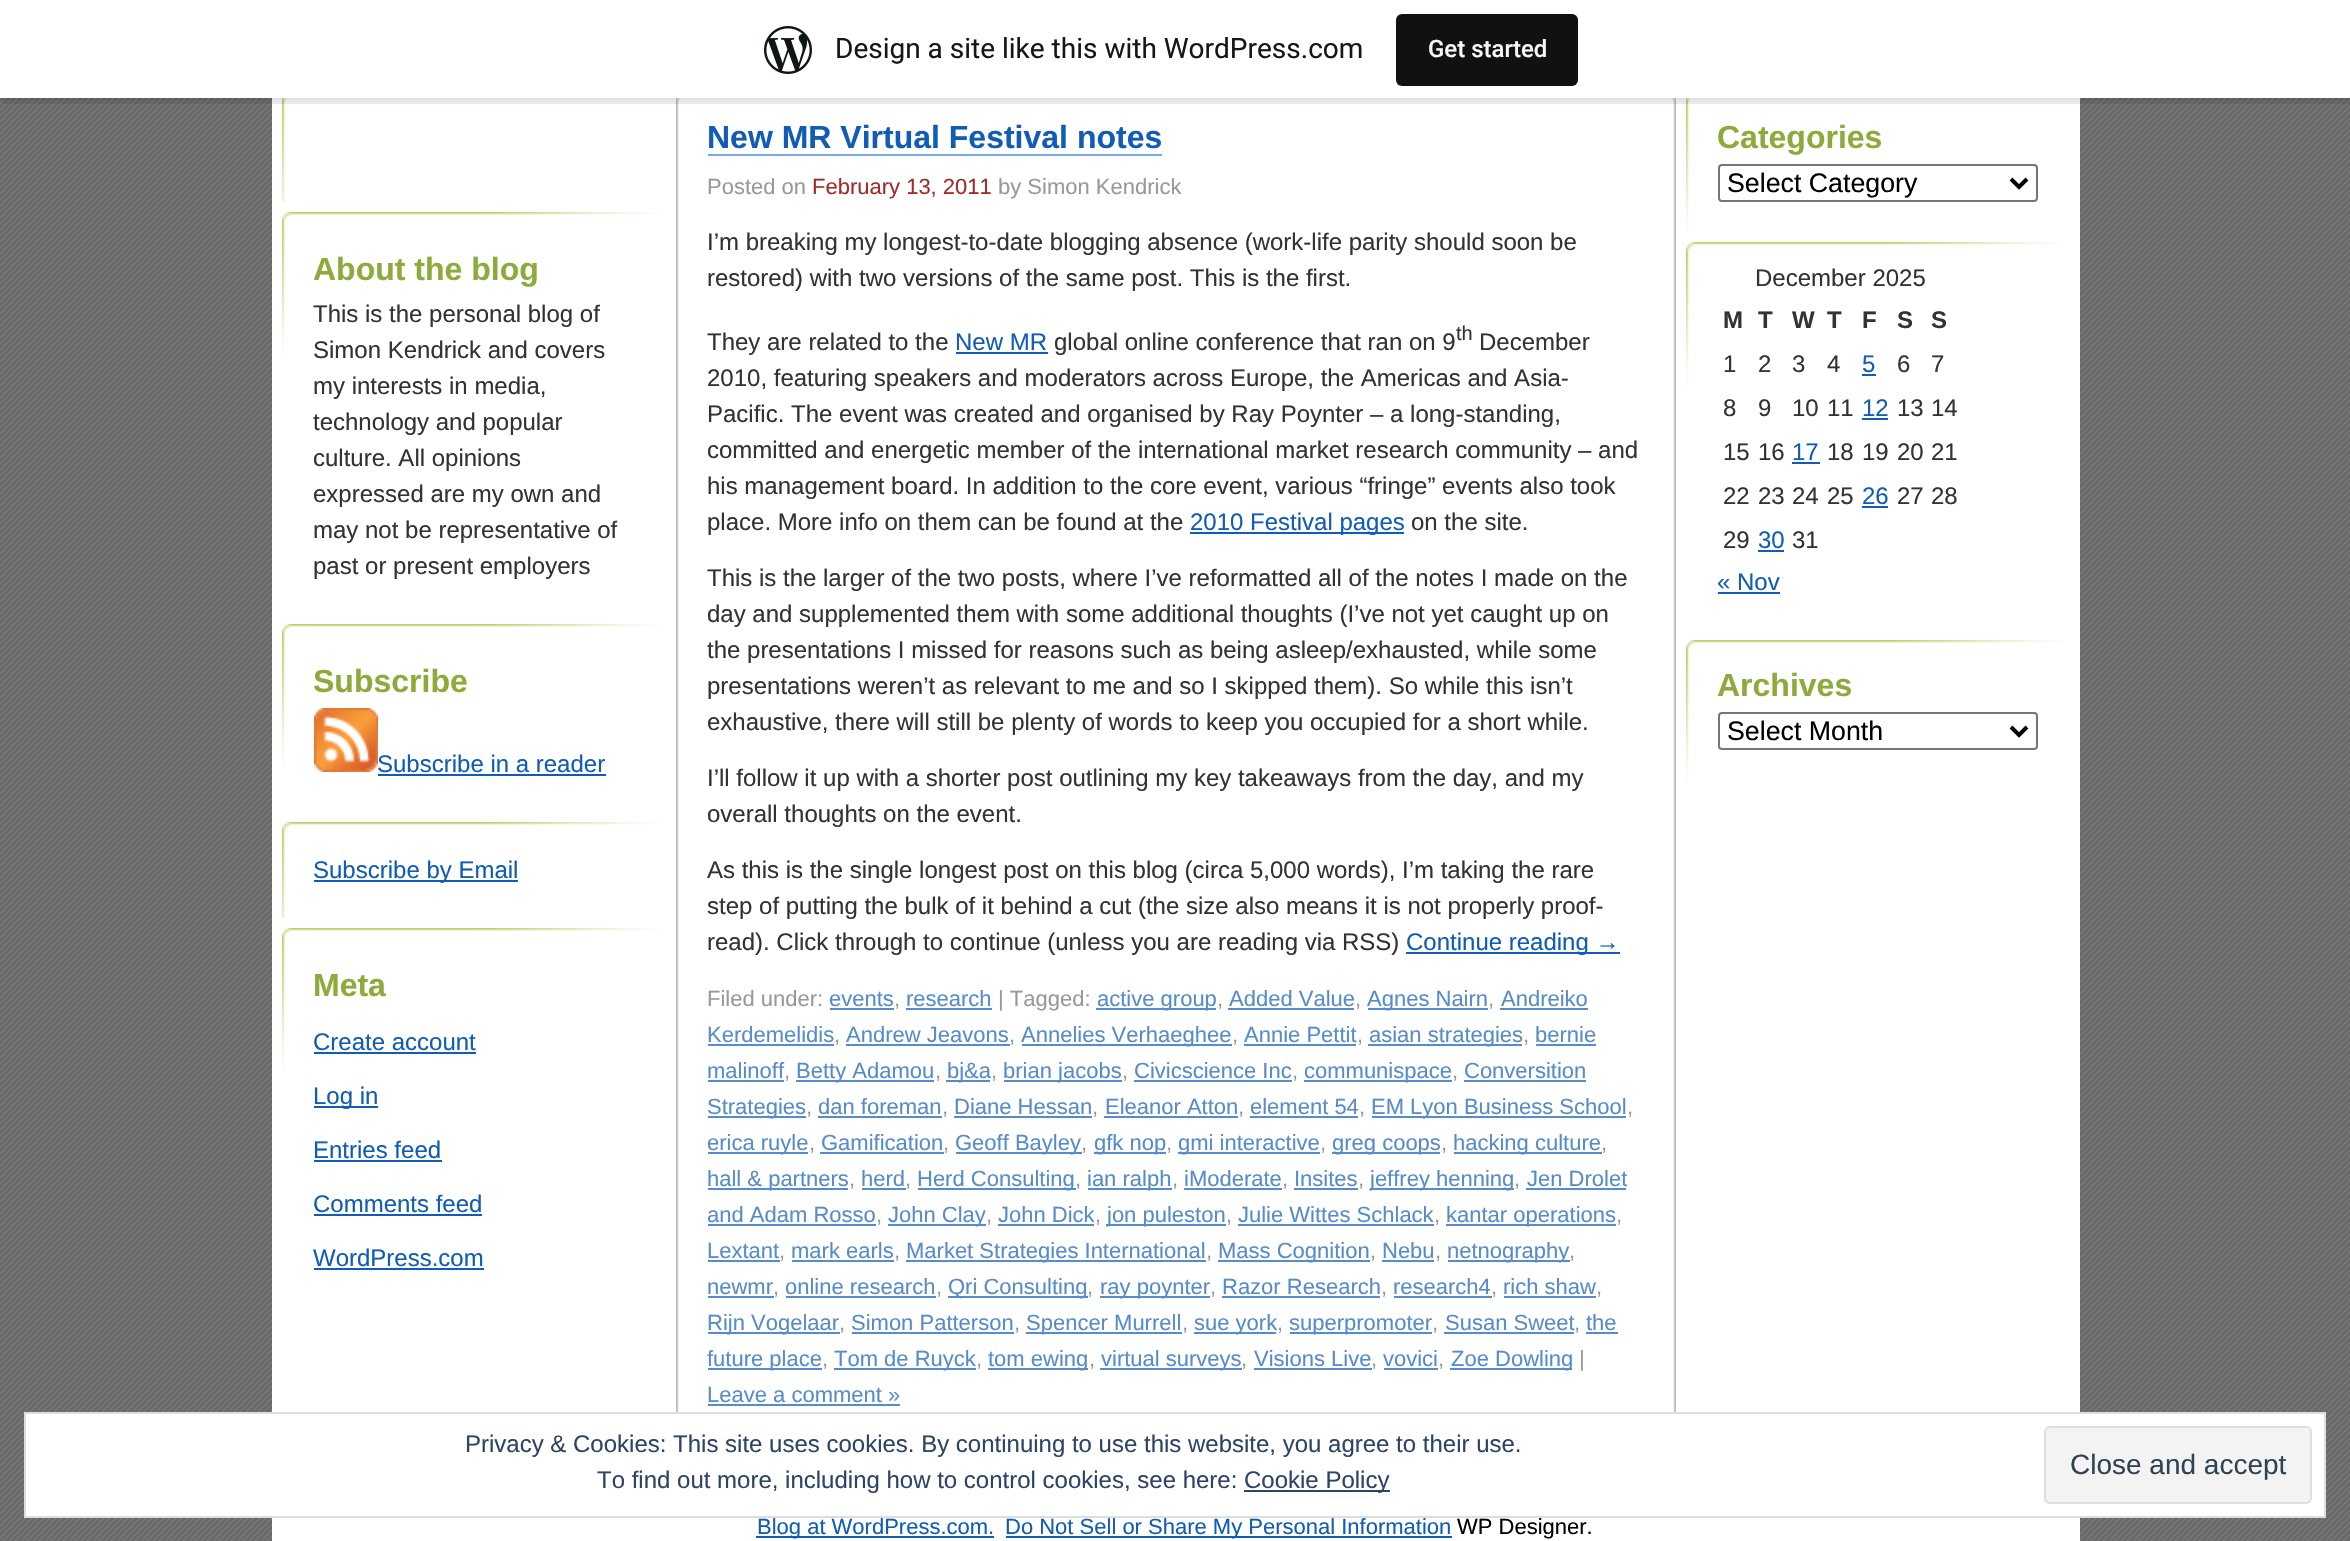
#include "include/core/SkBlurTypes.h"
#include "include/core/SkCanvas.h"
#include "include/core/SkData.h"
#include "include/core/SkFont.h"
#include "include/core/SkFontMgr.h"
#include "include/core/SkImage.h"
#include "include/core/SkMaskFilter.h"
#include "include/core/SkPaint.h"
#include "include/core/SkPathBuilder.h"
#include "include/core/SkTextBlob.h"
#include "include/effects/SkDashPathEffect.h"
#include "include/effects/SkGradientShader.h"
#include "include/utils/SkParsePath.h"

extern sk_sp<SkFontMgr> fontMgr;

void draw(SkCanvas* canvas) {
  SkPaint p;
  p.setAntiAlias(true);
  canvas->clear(SK_ColorWHITE);
  canvas->drawImageRect(SkImages::DeferredFromEncodedData(SkData::MakeFromFileName("images/1.png")), SkRect::MakeLTRB(0, 98, 2350, 1541), SkSamplingOptions());
  p.setColor(SK_ColorWHITE);
  canvas->drawRect(SkRect::MakeLTRB(272, 98, 2080, 1541), p);
  canvas->drawImageRect(SkImages::DeferredFromEncodedData(SkData::MakeFromFileName("images/3.png")), SkRect::MakeLTRB(282, 98, 659, 202), SkSamplingOptions());
  canvas->drawImageRect(SkImages::DeferredFromEncodedData(SkData::MakeFromFileName("images/7.png")), SkRect::MakeLTRB(676, 101, 1676, 1412), SkSamplingOptions());
  canvas->drawImageRect(SkImages::DeferredFromEncodedData(SkData::MakeFromFileName("images/8.png")), SkRect::MakeLTRB(676, 98, 1676, 101), SkSamplingOptions());
  canvas->drawImageRect(SkImages::DeferredFromEncodedData(SkData::MakeFromFileName("images/9.png")), SkRect::MakeLTRB(1686, 98, 2063, 232), SkSamplingOptions());
  p.setColor(SkColorSetARGB(13, 0, 0, 0));
  p.setMaskFilter(SkMaskFilter::MakeBlur(kNormal_SkBlurStyle, 2));
  canvas->drawRect(SkRect::MakeLTRB(0, 2, 2350, 100), p);
  p.setMaskFilter(nullptr);
  p.setColor(SkColorSetARGB(20, 0, 0, 0));
  canvas->drawPath(SkPathBuilder().moveTo(2, 98).lineTo(2, 104).lineTo(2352, 104).lineTo(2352, 6).lineTo(2350, 6).lineTo(2350, 98).close().detach(), p);
  p.setColor(SK_ColorWHITE);
  canvas->drawRect(SkRect::MakeLTRB(0, 0, 2350, 98), p);
  canvas->drawImageRect(SkImages::DeferredFromEncodedData(SkData::MakeFromFileName("images/2.png")), SkRect::MakeLTRB(764, 26, 812, 74), SkSamplingOptions());
  p.setColor(SkColorSetRGB(17, 17, 17));
  canvas->drawRoundRect(SkRect::MakeLTRB(1396, 14, 1578, 86), 6, 6, p);
  canvas->drawImageRect(SkImages::DeferredFromEncodedData(SkData::MakeFromFileName("images/4.png")), SkRect::MakeLTRB(282, 212, 659, 357), SkSamplingOptions());
  canvas->drawImageRect(SkImages::DeferredFromEncodedData(SkData::MakeFromFileName("images/4.png")), SkRect::MakeLTRB(282, 624, 659, 769), SkSamplingOptions());
  canvas->drawImageRect(SkImages::DeferredFromEncodedData(SkData::MakeFromFileName("images/5.png")), SkRect::MakeLTRB(314, 708, 378, 772), SkSamplingOptions());
  p.setColor(SkColorSetRGB(16, 92, 182));
  canvas->drawRect(SkRect::MakeLTRB(378, 774, 606, 776), p);
  canvas->drawImageRect(SkImages::DeferredFromEncodedData(SkData::MakeFromFileName("images/6.png")), SkRect::MakeLTRB(282, 822, 659, 918), SkSamplingOptions());
  canvas->drawRect(SkRect::MakeLTRB(314, 880, 518, 882), p);
  canvas->drawImageRect(SkImages::DeferredFromEncodedData(SkData::MakeFromFileName("images/4.png")), SkRect::MakeLTRB(282, 928, 659, 1073), SkSamplingOptions());
  canvas->drawRect(SkRect::MakeLTRB(314, 1052, 476, 1054), p);
  canvas->drawRect(SkRect::MakeLTRB(314, 1106, 378, 1108), p);
  canvas->drawRect(SkRect::MakeLTRB(314, 1160, 442, 1162), p);
  canvas->drawRect(SkRect::MakeLTRB(314, 1214, 482, 1216), p);
  canvas->drawRect(SkRect::MakeLTRB(314, 1268, 484, 1270), p);
  p.setColor(SkColorSetRGB(117, 171, 234));
  canvas->drawRect(SkRect::MakeLTRB(708, 154, 1162, 156), p);
  p.setColor(SkColorSetRGB(16, 92, 182));
  canvas->drawRect(SkRect::MakeLTRB(956, 352, 1048, 354), p);
  canvas->drawRect(SkRect::MakeLTRB(1190, 532, 1404, 534), p);
  canvas->drawRect(SkRect::MakeLTRB(1406, 952, 1620, 954), p);
  p.setColor(SkColorSetRGB(87, 140, 202));
  canvas->drawRect(SkRect::MakeLTRB(830, 1008, 894, 1010), p);
  canvas->drawRect(SkRect::MakeLTRB(906, 1008, 992, 1010), p);
  canvas->drawRect(SkRect::MakeLTRB(1096, 1008, 1216, 1010), p);
  canvas->drawRect(SkRect::MakeLTRB(1228, 1008, 1354, 1010), p);
  canvas->drawRect(SkRect::MakeLTRB(1368, 1008, 1488, 1010), p);
  canvas->drawRect(SkRect::MakeLTRB(1500, 1008, 1588, 1010), p);
  canvas->drawRect(SkRect::MakeLTRB(708, 1044, 834, 1046), p);
  canvas->drawRect(SkRect::MakeLTRB(846, 1044, 1010, 1046), p);
  canvas->drawRect(SkRect::MakeLTRB(1022, 1044, 1232, 1046), p);
  canvas->drawRect(SkRect::MakeLTRB(1244, 1044, 1356, 1046), p);
  canvas->drawRect(SkRect::MakeLTRB(1368, 1044, 1522, 1046), p);
  canvas->drawRect(SkRect::MakeLTRB(1536, 1044, 1596, 1046), p);
  canvas->drawRect(SkRect::MakeLTRB(708, 1080, 784, 1082), p);
  canvas->drawRect(SkRect::MakeLTRB(796, 1080, 934, 1082), p);
  canvas->drawRect(SkRect::MakeLTRB(946, 1080, 990, 1082), p);
  canvas->drawRect(SkRect::MakeLTRB(1004, 1080, 1122, 1082), p);
  canvas->drawRect(SkRect::MakeLTRB(1134, 1080, 1292, 1082), p);
  canvas->drawRect(SkRect::MakeLTRB(1304, 1080, 1452, 1082), p);
  canvas->drawRect(SkRect::MakeLTRB(1464, 1080, 1586, 1082), p);
  canvas->drawRect(SkRect::MakeLTRB(708, 1116, 806, 1118), p);
  canvas->drawRect(SkRect::MakeLTRB(818, 1116, 942, 1118), p);
  canvas->drawRect(SkRect::MakeLTRB(954, 1116, 1092, 1118), p);
  canvas->drawRect(SkRect::MakeLTRB(1104, 1116, 1238, 1118), p);
  canvas->drawRect(SkRect::MakeLTRB(1250, 1116, 1358, 1118), p);
  canvas->drawRect(SkRect::MakeLTRB(1372, 1116, 1626, 1118), p);
  canvas->drawRect(SkRect::MakeLTRB(708, 1152, 808, 1154), p);
  canvas->drawRect(SkRect::MakeLTRB(820, 1152, 944, 1154), p);
  canvas->drawRect(SkRect::MakeLTRB(956, 1152, 1082, 1154), p);
  canvas->drawRect(SkRect::MakeLTRB(1094, 1152, 1166, 1154), p);
  canvas->drawRect(SkRect::MakeLTRB(1178, 1152, 1320, 1154), p);
  canvas->drawRect(SkRect::MakeLTRB(1332, 1152, 1440, 1154), p);
  canvas->drawRect(SkRect::MakeLTRB(1454, 1152, 1602, 1154), p);
  canvas->drawRect(SkRect::MakeLTRB(708, 1188, 848, 1190), p);
  canvas->drawRect(SkRect::MakeLTRB(862, 1188, 906, 1190), p);
  canvas->drawRect(SkRect::MakeLTRB(918, 1188, 1076, 1190), p);
  canvas->drawRect(SkRect::MakeLTRB(1088, 1188, 1172, 1190), p);
  canvas->drawRect(SkRect::MakeLTRB(1184, 1188, 1282, 1190), p);
  canvas->drawRect(SkRect::MakeLTRB(1294, 1188, 1358, 1190), p);
  canvas->drawRect(SkRect::MakeLTRB(1370, 1188, 1514, 1190), p);
  canvas->drawRect(SkRect::MakeLTRB(1526, 1188, 1626, 1190), p);
  canvas->drawRect(SkRect::MakeLTRB(708, 1224, 876, 1226), p);
  canvas->drawRect(SkRect::MakeLTRB(888, 1224, 986, 1226), p);
  canvas->drawRect(SkRect::MakeLTRB(998, 1224, 1094, 1226), p);
  canvas->drawRect(SkRect::MakeLTRB(1106, 1224, 1226, 1226), p);
  canvas->drawRect(SkRect::MakeLTRB(1238, 1224, 1434, 1226), p);
  canvas->drawRect(SkRect::MakeLTRB(1446, 1224, 1616, 1226), p);
  canvas->drawRect(SkRect::MakeLTRB(708, 1260, 780, 1262), p);
  canvas->drawRect(SkRect::MakeLTRB(792, 1260, 894, 1262), p);
  canvas->drawRect(SkRect::MakeLTRB(906, 1260, 1206, 1262), p);
  canvas->drawRect(SkRect::MakeLTRB(1218, 1260, 1370, 1262), p);
  canvas->drawRect(SkRect::MakeLTRB(1382, 1260, 1434, 1262), p);
  canvas->drawRect(SkRect::MakeLTRB(1448, 1260, 1570, 1262), p);
  canvas->drawRect(SkRect::MakeLTRB(708, 1296, 774, 1298), p);
  canvas->drawRect(SkRect::MakeLTRB(786, 1296, 936, 1298), p);
  canvas->drawRect(SkRect::MakeLTRB(948, 1296, 1088, 1298), p);
  canvas->drawRect(SkRect::MakeLTRB(1100, 1296, 1210, 1298), p);
  canvas->drawRect(SkRect::MakeLTRB(1222, 1296, 1380, 1298), p);
  canvas->drawRect(SkRect::MakeLTRB(1394, 1296, 1492, 1298), p);
  canvas->drawRect(SkRect::MakeLTRB(1504, 1296, 1596, 1298), p);
  canvas->drawRect(SkRect::MakeLTRB(708, 1332, 840, 1334), p);
  canvas->drawRect(SkRect::MakeLTRB(852, 1332, 1014, 1334), p);
  canvas->drawRect(SkRect::MakeLTRB(1026, 1332, 1182, 1334), p);
  canvas->drawRect(SkRect::MakeLTRB(1194, 1332, 1276, 1334), p);
  canvas->drawRect(SkRect::MakeLTRB(1290, 1332, 1432, 1334), p);
  canvas->drawRect(SkRect::MakeLTRB(1444, 1332, 1574, 1334), p);
  canvas->drawRect(SkRect::MakeLTRB(1586, 1332, 1618, 1334), p);
  canvas->drawRect(SkRect::MakeLTRB(708, 1368, 822, 1370), p);
  canvas->drawRect(SkRect::MakeLTRB(834, 1368, 976, 1370), p);
  canvas->drawRect(SkRect::MakeLTRB(988, 1368, 1088, 1370), p);
  canvas->drawRect(SkRect::MakeLTRB(1100, 1368, 1242, 1370), p);
  canvas->drawRect(SkRect::MakeLTRB(1254, 1368, 1372, 1370), p);
  canvas->drawRect(SkRect::MakeLTRB(1384, 1368, 1438, 1370), p);
  canvas->drawRect(SkRect::MakeLTRB(1450, 1368, 1572, 1370), p);
  canvas->drawRect(SkRect::MakeLTRB(708, 1404, 900, 1406), p);
  p.setStyle(SkPaint::kStroke_Style);
  p.setStrokeWidth(2);
  p.setColor(SkColorSetRGB(118, 118, 118));
  canvas->drawRoundRect(SkRect::MakeLTRB(1719, 165, 2037, 201), 3, 3, p);
  p.setStrokeWidth(4);
  p.setColor(SK_ColorBLACK);
  canvas->drawPath(SkPathBuilder().moveTo(2011, 179).lineTo(2019, 187).lineTo(2027, 179).detach(), p);
  canvas->drawImageRect(SkImages::DeferredFromEncodedData(SkData::MakeFromFileName("images/4.png")), SkRect::MakeLTRB(1686, 242, 2063, 387), SkSamplingOptions());
  p.setStyle(SkPaint::kFill_Style);
  p.setColor(SkColorSetRGB(16, 92, 182));
  canvas->drawRect(SkRect::MakeLTRB(1862, 374, 1876, 376), p);
  canvas->drawRect(SkRect::MakeLTRB(1862, 418, 1888, 420), p);
  canvas->drawRect(SkRect::MakeLTRB(1792, 462, 1820, 464), p);
  canvas->drawRect(SkRect::MakeLTRB(1862, 506, 1888, 508), p);
  canvas->drawRect(SkRect::MakeLTRB(1758, 550, 1784, 552), p);
  canvas->drawRect(SkRect::MakeLTRB(1718, 592, 1780, 594), p);
  canvas->drawImageRect(SkImages::DeferredFromEncodedData(SkData::MakeFromFileName("images/10.png")), SkRect::MakeLTRB(1686, 640, 2063, 780), SkSamplingOptions());
  p.setStyle(SkPaint::kStroke_Style);
  p.setStrokeWidth(2);
  p.setColor(SkColorSetRGB(118, 118, 118));
  canvas->drawRoundRect(SkRect::MakeLTRB(1719, 713, 2037, 749), 3, 3, p);
  p.setStrokeWidth(4);
  p.setColor(SK_ColorBLACK);
  canvas->drawPath(SkPathBuilder().moveTo(2011, 727).lineTo(2019, 735).lineTo(2027, 727).detach(), p);
  p.setStyle(SkPaint::kFill_Style);
  p.setColor(SkColorSetRGB(16, 92, 182));
  canvas->drawRect(SkRect::MakeLTRB(756, 1536, 994, 1538), p);
  canvas->drawRect(SkRect::MakeLTRB(1006, 1536, 1452, 1538), p);
  p.setColor(SK_ColorWHITE);
  canvas->drawRect(SkRect::MakeLTRB(25, 1413, 2325, 1517), p);
  p.setStyle(SkPaint::kStroke_Style);
  p.setStrokeWidth(2);
  p.setColor(SkColorSetRGB(222, 222, 222));
  canvas->drawRect(SkRect::MakeLTRB(25, 1413, 2325, 1517), p);
  p.setStyle(SkPaint::kFill_Style);
  p.setColor(SkColorSetRGB(46, 68, 103));
  canvas->drawRect(SkRect::MakeLTRB(1244, 1490, 1390, 1492), p);
  p.setColor(SkColorSetRGB(243, 243, 243));
  canvas->drawRoundRect(SkRect::MakeLTRB(2045, 1427, 2311, 1503), 5, 5, p);
  p.setStyle(SkPaint::kStroke_Style);
  p.setColor(SkColorSetRGB(222, 222, 222));
  canvas->drawRoundRect(SkRect::MakeLTRB(2045, 1427, 2311, 1503), 5, 5, p);
  SkFont font1(fontMgr->matchFamilyStyle("Roboto", SkFontStyle::Normal()), 28);
  font1.setSubpixel(true);
  p.setStyle(SkPaint::kFill_Style);
  p.setColor(SkColorSetRGB(23, 23, 23));
  canvas->drawString("Design a site like this with WordPress.com", 835, 58, font1, p);
  SkFont font2(fontMgr->matchFamilyStyle("Roboto", SkFontStyle(500, SkFontStyle::kNormal_Width, SkFontStyle::kUpright_Slant)), 24);
  font2.setSubpixel(true);
  p.setColor(SkColorSetRGB(246, 247, 247));
  canvas->drawString("Get started", 1428, 57, font2, p);
  SkFont font3(fontMgr->matchFamilyStyle("Liberation Sans", SkFontStyle::Bold()), 32);
  font3.setSubpixel(true);
  p.setColor(SkColorSetRGB(141, 171, 59));
  canvas->drawString("About the blog", 313, 280, font3, p);
  SkFont font4(fontMgr->matchFamilyStyle("Liberation Sans", SkFontStyle::Normal()), 24);
  font4.setSubpixel(true);
  p.setColor(SkColorSetRGB(51, 51, 51));
  canvas->drawString("This is the personal blog of", 313, 322, font4, p);
  canvas->drawString("Simon Kendrick and covers", 313, 358, font4, p);
  canvas->drawString("my interests in media,", 313, 394, font4, p);
  canvas->drawString("technology and popular", 313, 430, font4, p);
  canvas->drawString("culture. All opinions", 313, 466, font4, p);
  canvas->drawString("expressed are my own and", 313, 502, font4, p);
  canvas->drawString("may not be representative of", 313, 538, font4, p);
  canvas->drawString("past or present employers", 313, 574, font4, p);
  p.setColor(SkColorSetRGB(141, 171, 59));
  canvas->drawString("Subscribe", 313, 692, font3, p);
  p.setColor(SkColorSetRGB(16, 92, 182));
  canvas->drawString("Subscribe in a reader", 377, 772, font4, p);
  canvas->drawString("Subscribe by Email", 313, 878, font4, p);
  p.setColor(SkColorSetRGB(141, 171, 59));
  canvas->drawString("Meta", 313, 996, font3, p);
  p.setColor(SkColorSetRGB(16, 92, 182));
  canvas->drawString("Create account", 313, 1050, font4, p);
  canvas->drawString("Log in", 313, 1104, font4, p);
  canvas->drawString("Entries feed", 313, 1158, font4, p);
  canvas->drawString("Comments feed", 313, 1212, font4, p);
  canvas->drawString("WordPress.com", 313, 1266, font4, p);
  canvas->drawString("New MR Virtual Festival notes", 707, 148, font3, p);
  SkFont font5(fontMgr->matchFamilyStyle("Liberation Sans", SkFontStyle::Normal()), 22);
  font5.setSubpixel(true);
  p.setColor(SkColorSetRGB(153, 153, 153));
  canvas->drawString("Posted on", 707, 194, font5, p);
  p.setColor(SkColorSetRGB(161, 42, 42));
  canvas->drawString("February 13, 2011", 812, 194, font5, p);
  p.setColor(SkColorSetRGB(153, 153, 153));
  canvas->drawString("by Simon Kendrick", 998, 194, font5, p);
  p.setColor(SkColorSetRGB(51, 51, 51));
  canvas->drawString("I’m breaking my longest-to-date blogging absence (work-life parity should soon be", 707, 250, font4, p);
  canvas->drawString("restored) with two versions of the same post. This is the first.", 707, 286, font4, p);
  canvas->drawString("They are related to the", 707, 350, font4, p);
  p.setColor(SkColorSetRGB(16, 92, 182));
  canvas->drawString("New MR", 955, 350, font4, p);
  p.setColor(SkColorSetRGB(51, 51, 51));
  canvas->drawString("global online conference that ran on 9", 1054, 350, font4, p);
  SkFont font6(fontMgr->matchFamilyStyle("Liberation Sans", SkFontStyle::Normal()), 20);
  font6.setSubpixel(true);
  canvas->drawString("th", 1456, 340, font6, p);
  canvas->drawString("December", 1479, 350, font4, p);
  canvas->drawString("2010, featuring speakers and moderators across Europe, the Americas and Asia-", 707, 386, font4, p);
  canvas->drawString("Pacific. The event was created and organised by Ray Poynter – a long-standing,", 707, 422, font4, p);
  canvas->drawString("committed and energetic member of the international market research community – and", 707, 458, font4, p);
  canvas->drawString("his management board. In addition to the core event, various “fringe” events also took", 707, 494, font4, p);
  canvas->drawString("place. More info on them can be found at the", 707, 530, font4, p);
  p.setColor(SkColorSetRGB(16, 92, 182));
  canvas->drawString("2010 Festival pages", 1190, 530, font4, p);
  p.setColor(SkColorSetRGB(51, 51, 51));
  canvas->drawString("on the site.", 1411, 530, font4, p);
  canvas->drawString("This is the larger of the two posts, where I’ve reformatted all of the notes I made on the", 707, 586, font4, p);
  canvas->drawString("day and supplemented them with some additional thoughts (I’ve not yet caught up on", 707, 622, font4, p);
  canvas->drawString("the presentations I missed for reasons such as being asleep/exhausted, while some", 707, 658, font4, p);
  canvas->drawString("presentations weren’t as relevant to me and so I skipped them). So while this isn’t", 707, 694, font4, p);
  canvas->drawString("exhaustive, there will still be plenty of words to keep you occupied for a short while.", 707, 730, font4, p);
  canvas->drawString("I’ll follow it up with a shorter post outlining my key takeaways from the day, and my", 707, 786, font4, p);
  canvas->drawString("overall thoughts on the event.", 707, 822, font4, p);
  canvas->drawString("As this is the single longest post on this blog (circa 5,000 words), I’m taking the rare", 707, 878, font4, p);
  canvas->drawString("step of putting the bulk of it behind a cut (the size also means it is not properly proof-", 707, 914, font4, p);
  canvas->drawString("read). Click through to continue (unless you are reading via RSS)", 707, 950, font4, p);
  p.setColor(SkColorSetRGB(16, 92, 182));
  canvas->drawString("Continue reading →", 1406, 950, font4, p);
  p.setColor(SkColorSetRGB(153, 153, 153));
  canvas->drawString("Filed under:", 707, 1006, font5, p);
  p.setColor(SkColorSetRGB(87, 140, 202));
  canvas->drawString("events", 829, 1006, font5, p);
  p.setColor(SkColorSetRGB(153, 153, 153));
  canvas->drawString(",", 894, 1006, font5, p);
  p.setColor(SkColorSetRGB(87, 140, 202));
  canvas->drawString("research", 906, 1006, font5, p);
  p.setColor(SkColorSetRGB(153, 153, 153));
  canvas->drawString("| Tagged:", 998, 1006, font5, p);
  p.setColor(SkColorSetRGB(87, 140, 202));
  canvas->drawString("active group", 1097, 1006, font5, p);
  p.setColor(SkColorSetRGB(153, 153, 153));
  canvas->drawString(",", 1217, 1006, font5, p);
  p.setColor(SkColorSetRGB(87, 140, 202));
  canvas->drawString("Added Value", 1229, 1006, font5, p);
  p.setColor(SkColorSetRGB(153, 153, 153));
  canvas->drawString(",", 1355, 1006, font5, p);
  p.setColor(SkColorSetRGB(87, 140, 202));
  canvas->drawString("Agnes Nairn", 1367, 1006, font5, p);
  p.setColor(SkColorSetRGB(153, 153, 153));
  canvas->drawString(",", 1488, 1006, font5, p);
  p.setColor(SkColorSetRGB(87, 140, 202));
  canvas->drawString("Andreiko", 1501, 1006, font5, p);
  canvas->drawString("Kerdemelidis", 707, 1042, font5, p);
  p.setColor(SkColorSetRGB(153, 153, 153));
  canvas->drawString(",", 834, 1042, font5, p);
  p.setColor(SkColorSetRGB(87, 140, 202));
  canvas->drawString("Andrew Jeavons", 846, 1042, font5, p);
  p.setColor(SkColorSetRGB(153, 153, 153));
  canvas->drawString(",", 1009, 1042, font5, p);
  p.setColor(SkColorSetRGB(87, 140, 202));
  canvas->drawString("Annelies Verhaeghee", 1021, 1042, font5, p);
  p.setColor(SkColorSetRGB(153, 153, 153));
  canvas->drawString(",", 1232, 1042, font5, p);
  p.setColor(SkColorSetRGB(87, 140, 202));
  canvas->drawString("Annie Pettit", 1244, 1042, font5, p);
  p.setColor(SkColorSetRGB(153, 153, 153));
  canvas->drawString(",", 1357, 1042, font5, p);
  p.setColor(SkColorSetRGB(87, 140, 202));
  canvas->drawString("asian strategies", 1369, 1042, font5, p);
  p.setColor(SkColorSetRGB(153, 153, 153));
  canvas->drawString(",", 1523, 1042, font5, p);
  p.setColor(SkColorSetRGB(87, 140, 202));
  canvas->drawString("bernie", 1535, 1042, font5, p);
  canvas->drawString("malinoff", 707, 1078, font5, p);
  p.setColor(SkColorSetRGB(153, 153, 153));
  canvas->drawString(",", 784, 1078, font5, p);
  p.setColor(SkColorSetRGB(87, 140, 202));
  canvas->drawString("Betty Adamou", 796, 1078, font5, p);
  p.setColor(SkColorSetRGB(153, 153, 153));
  canvas->drawString(",", 935, 1078, font5, p);
  p.setColor(SkColorSetRGB(87, 140, 202));
  canvas->drawString("bj&a", 947, 1078, font5, p);
  p.setColor(SkColorSetRGB(153, 153, 153));
  canvas->drawString(",", 991, 1078, font5, p);
  p.setColor(SkColorSetRGB(87, 140, 202));
  canvas->drawString("brian jacobs", 1003, 1078, font5, p);
  p.setColor(SkColorSetRGB(153, 153, 153));
  canvas->drawString(",", 1122, 1078, font5, p);
  p.setColor(SkColorSetRGB(87, 140, 202));
  canvas->drawString("Civicscience Inc", 1134, 1078, font5, p);
  p.setColor(SkColorSetRGB(153, 153, 153));
  canvas->drawString(",", 1292, 1078, font5, p);
  p.setColor(SkColorSetRGB(87, 140, 202));
  canvas->drawString("communispace", 1304, 1078, font5, p);
  p.setColor(SkColorSetRGB(153, 153, 153));
  canvas->drawString(",", 1452, 1078, font5, p);
  p.setColor(SkColorSetRGB(87, 140, 202));
  canvas->drawString("Conversition", 1464, 1078, font5, p);
  canvas->drawString("Strategies", 707, 1114, font5, p);
  p.setColor(SkColorSetRGB(153, 153, 153));
  canvas->drawString(",", 806, 1114, font5, p);
  p.setColor(SkColorSetRGB(87, 140, 202));
  canvas->drawString("dan foreman", 818, 1114, font5, p);
  p.setColor(SkColorSetRGB(153, 153, 153));
  canvas->drawString(",", 942, 1114, font5, p);
  p.setColor(SkColorSetRGB(87, 140, 202));
  canvas->drawString("Diane Hessan", 954, 1114, font5, p);
  p.setColor(SkColorSetRGB(153, 153, 153));
  canvas->drawString(",", 1092, 1114, font5, p);
  p.setColor(SkColorSetRGB(87, 140, 202));
  canvas->drawString("Eleanor Atton", 1105, 1114, font5, p);
  p.setColor(SkColorSetRGB(153, 153, 153));
  canvas->drawString(",", 1238, 1114, font5, p);
  p.setColor(SkColorSetRGB(87, 140, 202));
  canvas->drawString("element 54", 1250, 1114, font5, p);
  p.setColor(SkColorSetRGB(153, 153, 153));
  canvas->drawString(",", 1359, 1114, font5, p);
  p.setColor(SkColorSetRGB(87, 140, 202));
  canvas->drawString("EM Lyon Business School", 1371, 1114, font5, p);
  p.setColor(SkColorSetRGB(153, 153, 153));
  canvas->drawString(",", 1627, 1114, font5, p);
  p.setColor(SkColorSetRGB(87, 140, 202));
  canvas->drawString("erica ruyle", 707, 1150, font5, p);
  p.setColor(SkColorSetRGB(153, 153, 153));
  canvas->drawString(",", 809, 1150, font5, p);
  p.setColor(SkColorSetRGB(87, 140, 202));
  canvas->drawString("Gamification", 821, 1150, font5, p);
  p.setColor(SkColorSetRGB(153, 153, 153));
  canvas->drawString(",", 943, 1150, font5, p);
  p.setColor(SkColorSetRGB(87, 140, 202));
  canvas->drawString("Geoff Bayley", 955, 1150, font5, p);
  p.setColor(SkColorSetRGB(153, 153, 153));
  canvas->drawString(",", 1081, 1150, font5, p);
  p.setColor(SkColorSetRGB(87, 140, 202));
  canvas->drawString("gfk nop", 1094, 1150, font5, p);
  p.setColor(SkColorSetRGB(153, 153, 153));
  canvas->drawString(",", 1166, 1150, font5, p);
  p.setColor(SkColorSetRGB(87, 140, 202));
  canvas->drawString("gmi interactive", 1178, 1150, font5, p);
  p.setColor(SkColorSetRGB(153, 153, 153));
  canvas->drawString(",", 1320, 1150, font5, p);
  p.setColor(SkColorSetRGB(87, 140, 202));
  canvas->drawString("greg coops", 1332, 1150, font5, p);
  p.setColor(SkColorSetRGB(153, 153, 153));
  canvas->drawString(",", 1441, 1150, font5, p);
  p.setColor(SkColorSetRGB(87, 140, 202));
  canvas->drawString("hacking culture", 1453, 1150, font5, p);
  p.setColor(SkColorSetRGB(153, 153, 153));
  canvas->drawString(",", 1601, 1150, font5, p);
  p.setColor(SkColorSetRGB(87, 140, 202));
  canvas->drawString("hall & partners", 707, 1186, font5, p);
  p.setColor(SkColorSetRGB(153, 153, 153));
  canvas->drawString(",", 849, 1186, font5, p);
  p.setColor(SkColorSetRGB(87, 140, 202));
  canvas->drawString("herd", 861, 1186, font5, p);
  p.setColor(SkColorSetRGB(153, 153, 153));
  canvas->drawString(",", 905, 1186, font5, p);
  p.setColor(SkColorSetRGB(87, 140, 202));
  canvas->drawString("Herd Consulting", 917, 1186, font5, p);
  p.setColor(SkColorSetRGB(153, 153, 153));
  canvas->drawString(",", 1075, 1186, font5, p);
  p.setColor(SkColorSetRGB(87, 140, 202));
  canvas->drawString("ian ralph", 1087, 1186, font5, p);
  p.setColor(SkColorSetRGB(153, 153, 153));
  canvas->drawString(",", 1172, 1186, font5, p);
  p.setColor(SkColorSetRGB(87, 140, 202));
  canvas->drawString("iModerate", 1184, 1186, font5, p);
  p.setColor(SkColorSetRGB(153, 153, 153));
  canvas->drawString(",", 1282, 1186, font5, p);
  p.setColor(SkColorSetRGB(87, 140, 202));
  canvas->drawString("Insites", 1294, 1186, font5, p);
  p.setColor(SkColorSetRGB(153, 153, 153));
  canvas->drawString(",", 1358, 1186, font5, p);
  p.setColor(SkColorSetRGB(87, 140, 202));
  canvas->drawString("jeffrey henning", 1370, 1186, font5, p);
  p.setColor(SkColorSetRGB(153, 153, 153));
  canvas->drawString(",", 1514, 1186, font5, p);
  p.setColor(SkColorSetRGB(87, 140, 202));
  canvas->drawString("Jen Drolet", 1527, 1186, font5, p);
  canvas->drawString("and Adam Rosso", 707, 1222, font5, p);
  p.setColor(SkColorSetRGB(153, 153, 153));
  canvas->drawString(",", 876, 1222, font5, p);
  p.setColor(SkColorSetRGB(87, 140, 202));
  canvas->drawString("John Clay", 888, 1222, font5, p);
  p.setColor(SkColorSetRGB(153, 153, 153));
  canvas->drawString(",", 986, 1222, font5, p);
  p.setColor(SkColorSetRGB(87, 140, 202));
  canvas->drawString("John Dick", 998, 1222, font5, p);
  p.setColor(SkColorSetRGB(153, 153, 153));
  canvas->drawString(",", 1095, 1222, font5, p);
  p.setColor(SkColorSetRGB(87, 140, 202));
  canvas->drawString("jon puleston", 1107, 1222, font5, p);
  p.setColor(SkColorSetRGB(153, 153, 153));
  canvas->drawString(",", 1226, 1222, font5, p);
  p.setColor(SkColorSetRGB(87, 140, 202));
  canvas->drawString("Julie Wittes Schlack", 1238, 1222, font5, p);
  p.setColor(SkColorSetRGB(153, 153, 153));
  canvas->drawString(",", 1434, 1222, font5, p);
  p.setColor(SkColorSetRGB(87, 140, 202));
  canvas->drawString("kantar operations", 1446, 1222, font5, p);
  p.setColor(SkColorSetRGB(153, 153, 153));
  canvas->drawString(",", 1616, 1222, font5, p);
  p.setColor(SkColorSetRGB(87, 140, 202));
  canvas->drawString("Lextant", 707, 1258, font5, p);
  p.setColor(SkColorSetRGB(153, 153, 153));
  canvas->drawString(",", 779, 1258, font5, p);
  p.setColor(SkColorSetRGB(87, 140, 202));
  canvas->drawString("mark earls", 791, 1258, font5, p);
  p.setColor(SkColorSetRGB(153, 153, 153));
  canvas->drawString(",", 894, 1258, font5, p);
  p.setColor(SkColorSetRGB(87, 140, 202));
  canvas->drawString("Market Strategies International", 906, 1258, font5, p);
  p.setColor(SkColorSetRGB(153, 153, 153));
  canvas->drawString(",", 1206, 1258, font5, p);
  p.setColor(SkColorSetRGB(87, 140, 202));
  canvas->drawString("Mass Cognition", 1218, 1258, font5, p);
  p.setColor(SkColorSetRGB(153, 153, 153));
  canvas->drawString(",", 1370, 1258, font5, p);
  p.setColor(SkColorSetRGB(87, 140, 202));
  canvas->drawString("Nebu", 1382, 1258, font5, p);
  p.setColor(SkColorSetRGB(153, 153, 153));
  canvas->drawString(",", 1435, 1258, font5, p);
  p.setColor(SkColorSetRGB(87, 140, 202));
  canvas->drawString("netnography", 1447, 1258, font5, p);
  p.setColor(SkColorSetRGB(153, 153, 153));
  canvas->drawString(",", 1569, 1258, font5, p);
  p.setColor(SkColorSetRGB(87, 140, 202));
  canvas->drawString("newmr", 707, 1294, font5, p);
  p.setColor(SkColorSetRGB(153, 153, 153));
  canvas->drawString(",", 773, 1294, font5, p);
  p.setColor(SkColorSetRGB(87, 140, 202));
  canvas->drawString("online research", 785, 1294, font5, p);
  p.setColor(SkColorSetRGB(153, 153, 153));
  canvas->drawString(",", 936, 1294, font5, p);
  p.setColor(SkColorSetRGB(87, 140, 202));
  canvas->drawString("Qri Consulting", 948, 1294, font5, p);
  p.setColor(SkColorSetRGB(153, 153, 153));
  canvas->drawString(",", 1087, 1294, font5, p);
  p.setColor(SkColorSetRGB(87, 140, 202));
  canvas->drawString("ray poynter", 1100, 1294, font5, p);
  p.setColor(SkColorSetRGB(153, 153, 153));
  canvas->drawString(",", 1210, 1294, font5, p);
  p.setColor(SkColorSetRGB(87, 140, 202));
  canvas->drawString("Razor Research", 1222, 1294, font5, p);
  p.setColor(SkColorSetRGB(153, 153, 153));
  canvas->drawString(",", 1381, 1294, font5, p);
  p.setColor(SkColorSetRGB(87, 140, 202));
  canvas->drawString("research4", 1393, 1294, font5, p);
  p.setColor(SkColorSetRGB(153, 153, 153));
  canvas->drawString(",", 1491, 1294, font5, p);
  p.setColor(SkColorSetRGB(87, 140, 202));
  canvas->drawString("rich shaw", 1503, 1294, font5, p);
  p.setColor(SkColorSetRGB(153, 153, 153));
  canvas->drawString(",", 1596, 1294, font5, p);
  p.setColor(SkColorSetRGB(87, 140, 202));
  canvas->drawString("Rijn Vogelaar", 707, 1330, font5, p);
  p.setColor(SkColorSetRGB(153, 153, 153));
  canvas->drawString(",", 839, 1330, font5, p);
  p.setColor(SkColorSetRGB(87, 140, 202));
  canvas->drawString("Simon Patterson", 851, 1330, font5, p);
  p.setColor(SkColorSetRGB(153, 153, 153));
  canvas->drawString(",", 1014, 1330, font5, p);
  p.setColor(SkColorSetRGB(87, 140, 202));
  canvas->drawString("Spencer Murrell", 1026, 1330, font5, p);
  p.setColor(SkColorSetRGB(153, 153, 153));
  canvas->drawString(",", 1182, 1330, font5, p);
  p.setColor(SkColorSetRGB(87, 140, 202));
  canvas->drawString("sue york", 1194, 1330, font5, p);
  p.setColor(SkColorSetRGB(153, 153, 153));
  canvas->drawString(",", 1277, 1330, font5, p);
  p.setColor(SkColorSetRGB(87, 140, 202));
  canvas->drawString("superpromoter", 1289, 1330, font5, p);
  p.setColor(SkColorSetRGB(153, 153, 153));
  canvas->drawString(",", 1432, 1330, font5, p);
  p.setColor(SkColorSetRGB(87, 140, 202));
  canvas->drawString("Susan Sweet", 1445, 1330, font5, p);
  p.setColor(SkColorSetRGB(153, 153, 153));
  canvas->drawString(",", 1574, 1330, font5, p);
  p.setColor(SkColorSetRGB(87, 140, 202));
  canvas->drawString("the", 1586, 1330, font5, p);
  canvas->drawString("future place", 707, 1366, font5, p);
  p.setColor(SkColorSetRGB(153, 153, 153));
  canvas->drawString(",", 822, 1366, font5, p);
  p.setColor(SkColorSetRGB(87, 140, 202));
  canvas->drawString("Tom de Ruyck", 834, 1366, font5, p);
  p.setColor(SkColorSetRGB(153, 153, 153));
  canvas->drawString(",", 976, 1366, font5, p);
  p.setColor(SkColorSetRGB(87, 140, 202));
  canvas->drawString("tom ewing", 988, 1366, font5, p);
  p.setColor(SkColorSetRGB(153, 153, 153));
  canvas->drawString(",", 1089, 1366, font5, p);
  p.setColor(SkColorSetRGB(87, 140, 202));
  canvas->drawString("virtual surveys", 1101, 1366, font5, p);
  p.setColor(SkColorSetRGB(153, 153, 153));
  canvas->drawString(",", 1241, 1366, font5, p);
  p.setColor(SkColorSetRGB(87, 140, 202));
  canvas->drawString("Visions Live", 1254, 1366, font5, p);
  p.setColor(SkColorSetRGB(153, 153, 153));
  canvas->drawString(",", 1371, 1366, font5, p);
  p.setColor(SkColorSetRGB(87, 140, 202));
  canvas->drawString("vovici", 1383, 1366, font5, p);
  p.setColor(SkColorSetRGB(153, 153, 153));
  canvas->drawString(",", 1438, 1366, font5, p);
  p.setColor(SkColorSetRGB(87, 140, 202));
  canvas->drawString("Zoe Dowling", 1451, 1366, font5, p);
  p.setColor(SkColorSetRGB(153, 153, 153));
  canvas->drawString("|", 1579, 1366, font5, p);
  p.setColor(SkColorSetRGB(87, 140, 202));
  canvas->drawString("Leave a comment »", 707, 1402, font5, p);
  p.setColor(SkColorSetRGB(141, 171, 59));
  canvas->drawString("Categories", 1717, 148, font3, p);
  SkFont font7(fontMgr->matchFamilyStyle("Liberation Sans", SkFontStyle::Normal()), 26.75f);
  font7.setSubpixel(true);
  p.setColor(SK_ColorBLACK);
  canvas->drawString("Select Category", 1727, 192, font7, p);
  p.setColor(SkColorSetRGB(51, 51, 51));
  canvas->drawString("December 2025", 1755, 286, font4, p);
  SkFont font8(fontMgr->matchFamilyStyle("Liberation Sans", SkFontStyle::Bold()), 24);
  font8.setSubpixel(true);
  canvas->drawString("M", 1723, 328, font8, p);
  canvas->drawString("T", 1758, 328, font8, p);
  canvas->drawString("W", 1792, 328, font8, p);
  canvas->drawString("T", 1827, 328, font8, p);
  canvas->drawString("F", 1862, 328, font8, p);
  canvas->drawString("S", 1897, 328, font8, p);
  canvas->drawString("S", 1931, 328, font8, p);
  canvas->drawString("1", 1723, 372, font4, p);
  canvas->drawString("2", 1758, 372, font4, p);
  canvas->drawString("3", 1792, 372, font4, p);
  canvas->drawString("4", 1827, 372, font4, p);
  p.setColor(SkColorSetRGB(16, 92, 182));
  canvas->drawString("5", 1862, 372, font4, p);
  p.setColor(SkColorSetRGB(51, 51, 51));
  canvas->drawString("6", 1897, 372, font4, p);
  canvas->drawString("7", 1931, 372, font4, p);
  canvas->drawString("8", 1723, 416, font4, p);
  canvas->drawString("9", 1758, 416, font4, p);
  canvas->drawString("10", 1792, 416, font4, p);
  canvas->drawString("11", 1827, 416, font4, p);
  p.setColor(SkColorSetRGB(16, 92, 182));
  canvas->drawString("12", 1862, 416, font4, p);
  p.setColor(SkColorSetRGB(51, 51, 51));
  canvas->drawString("13", 1897, 416, font4, p);
  canvas->drawString("14", 1931, 416, font4, p);
  canvas->drawString("15", 1723, 460, font4, p);
  canvas->drawString("16", 1758, 460, font4, p);
  p.setColor(SkColorSetRGB(16, 92, 182));
  canvas->drawString("17", 1792, 460, font4, p);
  p.setColor(SkColorSetRGB(51, 51, 51));
  canvas->drawString("18", 1827, 460, font4, p);
  canvas->drawString("19", 1862, 460, font4, p);
  canvas->drawString("20", 1897, 460, font4, p);
  canvas->drawString("21", 1931, 460, font4, p);
  canvas->drawString("22", 1723, 504, font4, p);
  canvas->drawString("23", 1758, 504, font4, p);
  canvas->drawString("24", 1792, 504, font4, p);
  canvas->drawString("25", 1827, 504, font4, p);
  p.setColor(SkColorSetRGB(16, 92, 182));
  canvas->drawString("26", 1862, 504, font4, p);
  p.setColor(SkColorSetRGB(51, 51, 51));
  canvas->drawString("27", 1897, 504, font4, p);
  canvas->drawString("28", 1931, 504, font4, p);
  canvas->drawString("29", 1723, 548, font4, p);
  p.setColor(SkColorSetRGB(16, 92, 182));
  canvas->drawString("30", 1758, 548, font4, p);
  p.setColor(SkColorSetRGB(51, 51, 51));
  canvas->drawString("31", 1792, 548, font4, p);
  p.setColor(SkColorSetRGB(16, 92, 182));
  canvas->drawString("« Nov", 1717, 590, font4, p);
  p.setColor(SkColorSetRGB(141, 171, 59));
  canvas->drawString("Archives", 1717, 696, font3, p);
  p.setColor(SK_ColorBLACK);
  canvas->drawString("Select Month", 1727, 740, font7, p);
  p.setColor(SkColorSetRGB(16, 92, 182));
  canvas->drawString("Blog at WordPress.com.", 757, 1534, font5, p);
  canvas->drawString("Do Not Sell or Share My Personal Information", 1005, 1534, font5, p);
  p.setColor(SK_ColorBLACK);
  canvas->drawString("WP Designer.", 1457, 1534, font5, p);
  p.setColor(SkColorSetRGB(46, 68, 103));
  canvas->drawString("Privacy & Cookies: This site uses cookies. By continuing to use this website, you agree to their use.", 465, 1452, font4, p);
  canvas->drawString("To find out more, including how to control cookies, see here:", 597, 1488, font4, p);
  canvas->drawString("Cookie Policy", 1244, 1488, font4, p);
  SkFont font9(fontMgr->matchFamilyStyle("Liberation Sans", SkFontStyle::Normal()), 28);
  font9.setSubpixel(true);
  p.setColor(SkColorSetRGB(46, 68, 83));
  canvas->drawString("Close and accept", 2070, 1474, font9, p);
}
